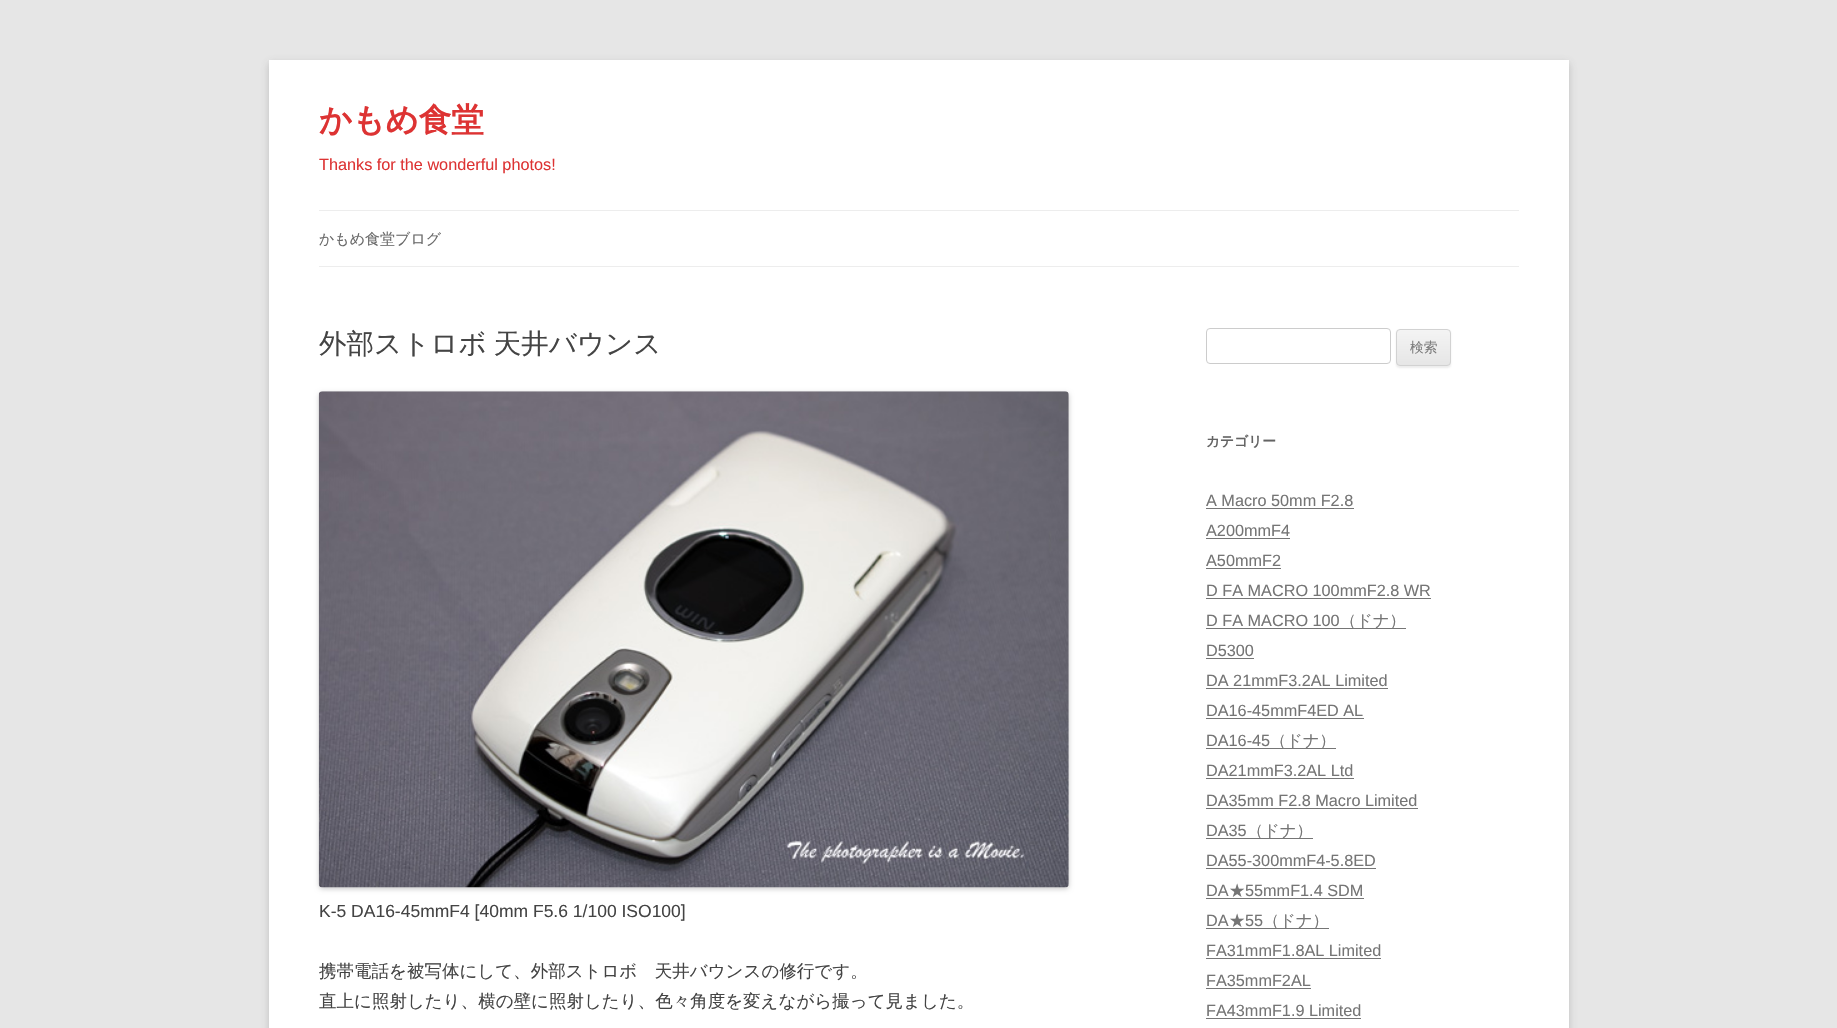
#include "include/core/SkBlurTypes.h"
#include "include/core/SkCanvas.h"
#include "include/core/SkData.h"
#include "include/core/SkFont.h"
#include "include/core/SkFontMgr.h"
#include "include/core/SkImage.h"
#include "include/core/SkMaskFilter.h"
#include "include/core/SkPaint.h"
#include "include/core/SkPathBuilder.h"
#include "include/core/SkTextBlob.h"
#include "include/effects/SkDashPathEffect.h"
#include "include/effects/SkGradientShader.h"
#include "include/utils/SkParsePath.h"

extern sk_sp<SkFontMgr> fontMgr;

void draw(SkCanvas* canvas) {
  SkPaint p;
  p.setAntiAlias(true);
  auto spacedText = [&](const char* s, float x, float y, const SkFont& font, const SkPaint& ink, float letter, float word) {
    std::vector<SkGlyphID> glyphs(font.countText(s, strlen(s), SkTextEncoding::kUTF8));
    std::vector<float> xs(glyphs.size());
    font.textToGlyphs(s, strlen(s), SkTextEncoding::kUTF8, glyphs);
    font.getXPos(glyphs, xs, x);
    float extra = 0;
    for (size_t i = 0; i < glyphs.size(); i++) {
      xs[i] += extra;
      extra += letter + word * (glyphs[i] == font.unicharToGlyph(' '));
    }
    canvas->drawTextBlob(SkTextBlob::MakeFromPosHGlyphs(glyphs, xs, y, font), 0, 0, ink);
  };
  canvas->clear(SkColorSetRGB(230, 230, 230));
  p.setColor(SkColorSetARGB(77, 100, 100, 100));
  p.setMaskFilter(SkMaskFilter::MakeBlur(kNormal_SkBlurStyle, 4));
  canvas->drawRect(SkRect::MakeLTRB(269, 63, 1569, 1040), p);
  p.setMaskFilter(nullptr);
  p.setColor(SK_ColorWHITE);
  canvas->drawRect(SkRect::MakeLTRB(269, 60, 1569, 1028), p);
  p.setColor(SkColorSetRGB(237, 237, 237));
  canvas->drawRect(SkRect::MakeLTRB(319, 210, 1519, 211), p);
  canvas->drawRect(SkRect::MakeLTRB(319, 266, 1519, 267), p);
  p.setColor(SkColorSetARGB(51, 0, 0, 0));
  p.setMaskFilter(SkMaskFilter::MakeBlur(kNormal_SkBlurStyle, 2.5f));
  canvas->drawRoundRect(SkRect::MakeLTRB(319, 393, 1069, 889), 4, 4, p);
  p.setMaskFilter(nullptr);
  canvas->drawImageRect(SkImages::DeferredFromEncodedData(SkData::MakeFromFileName("images/1.png")), SkRect::MakeLTRB(318, 391, 1069, 888), SkSamplingOptions());
  p.setStyle(SkPaint::kStroke_Style);
  p.setStrokeWidth(1);
  p.setColor(SkColorSetRGB(204, 204, 204));
  canvas->drawRoundRect(SkRect::MakeLTRB(1206.5f, 328.5f, 1390.5f, 363.5f), 3.5f, 3.5f, p);
  p.setStyle(SkPaint::kFill_Style);
  p.setColor(SkColorSetARGB(26, 64, 64, 64));
  p.setMaskFilter(SkMaskFilter::MakeBlur(kNormal_SkBlurStyle, 1));
  canvas->drawRoundRect(SkRect::MakeLTRB(1396, 330, 1451, 368), 4, 4, p);
  p.setMaskFilter(nullptr);
  canvas->save();
  canvas->clipPath(SkPathBuilder().moveTo(1400, 329).lineTo(1447, 329).cubicTo(1449, 329, 1451, 331, 1451, 333).lineTo(1451, 362).cubicTo(1451, 364, 1449, 366, 1447, 366).lineTo(1400, 366).cubicTo(1398, 366, 1396, 364, 1396, 362).lineTo(1396, 333).cubicTo(1396, 331, 1398, 329, 1400, 329).close().detach(), true);
  {
    const SkColor colors[] = {SkColorSetRGB(244, 244, 244), SkColorSetRGB(230, 230, 230)};
    const float stops[] = {0, 1};
    const SkPoint ends[] = {{1424, 330}, {1424, 365}};
    p.setShader(SkGradientShader::MakeLinear(ends, colors, stops, 2, SkTileMode::kClamp));
    p.setAlpha(255);
  }
  canvas->drawRect(SkRect::MakeLTRB(1396, 330, 1451, 365), p);
  canvas->restore();
  p.setStyle(SkPaint::kStroke_Style);
  p.setShader(nullptr);
  p.setColor(SkColorSetRGB(210, 210, 210));
  canvas->drawRoundRect(SkRect::MakeLTRB(1396.5f, 329.5f, 1450.5f, 365.5f), 3.5f, 3.5f, p);
  p.setStyle(SkPaint::kFill_Style);
  p.setColor(SkColorSetRGB(117, 117, 117));
  canvas->drawRect(SkRect::MakeLTRB(1206, 508, 1354, 509), p);
  canvas->drawRect(SkRect::MakeLTRB(1206, 538, 1290, 539), p);
  canvas->drawRect(SkRect::MakeLTRB(1206, 568, 1281, 569), p);
  canvas->drawRect(SkRect::MakeLTRB(1206, 598, 1431, 599), p);
  canvas->drawRect(SkRect::MakeLTRB(1206, 628, 1406, 629), p);
  canvas->drawRect(SkRect::MakeLTRB(1206, 658, 1254, 659), p);
  canvas->drawRect(SkRect::MakeLTRB(1206, 688, 1388, 689), p);
  canvas->drawRect(SkRect::MakeLTRB(1206, 718, 1364, 719), p);
  canvas->drawRect(SkRect::MakeLTRB(1206, 748, 1336, 749), p);
  canvas->drawRect(SkRect::MakeLTRB(1206, 778, 1354, 779), p);
  canvas->drawRect(SkRect::MakeLTRB(1206, 808, 1418, 809), p);
  canvas->drawRect(SkRect::MakeLTRB(1206, 838, 1313, 839), p);
  canvas->drawRect(SkRect::MakeLTRB(1206, 868, 1376, 869), p);
  canvas->drawRect(SkRect::MakeLTRB(1206, 898, 1364, 899), p);
  canvas->drawRect(SkRect::MakeLTRB(1206, 928, 1329, 929), p);
  canvas->drawRect(SkRect::MakeLTRB(1206, 958, 1381, 959), p);
  canvas->drawRect(SkRect::MakeLTRB(1206, 988, 1311, 989), p);
  canvas->drawRect(SkRect::MakeLTRB(1206, 1018, 1361, 1019), p);
  SkFont font1(fontMgr->matchFamilyStyle("WenQuanYi Zen Hei", SkFontStyle::Bold()), 32.5f);
  font1.setSubpixel(true);
  p.setColor(SkColorSetRGB(221, 51, 51));
  canvas->drawString("かもめ食堂", 319, 131, font1, p);
  SkFont font2(fontMgr->matchFamilyStyle("Liberation Sans", SkFontStyle::Normal()), 16.25f);
  font2.setSubpixel(true);
  canvas->drawString("Thanks for the wonderful photos!", 319, 170, font2, p);
  SkFont font3(fontMgr->matchFamilyStyle("WenQuanYi Zen Hei", SkFontStyle(500, SkFontStyle::kNormal_Width, SkFontStyle::kUpright_Slant)), 15);
  font3.setSubpixel(true);
  p.setColor(SkColorSetRGB(106, 106, 106));
  canvas->drawString("かもめ食堂ブログ", 319, 244, font3, p);
  SkFont font4(fontMgr->matchFamilyStyle("WenQuanYi Zen Hei", SkFontStyle(500, SkFontStyle::kNormal_Width, SkFontStyle::kUpright_Slant)), 27.5f);
  font4.setSubpixel(true);
  p.setColor(SkColorSetRGB(68, 68, 68));
  spacedText("外部ストロボ 天井バウンス", 319, 353, font4, p, 0, -1);
  SkFont font5(fontMgr->matchFamilyStyle("Liberation Sans", SkFontStyle::Normal()), 17.5f);
  font5.setSubpixel(true);
  canvas->drawString("K-5 DA16-45mmF4 [40mm F5.6 1/100 ISO100]", 319, 917, font5, p);
  SkFont font6(fontMgr->matchFamilyStyle("WenQuanYi Zen Hei", SkFontStyle(500, SkFontStyle::kNormal_Width, SkFontStyle::kUpright_Slant)), 17.5f);
  font6.setSubpixel(true);
  canvas->drawString("携帯電話を被写体にして、外部ストロボ　天井バウンスの修行です。", 319, 977, font6, p);
  canvas->drawString("直上に照射したり、横の壁に照射したり、色々角度を変えながら撮って見ました。", 319, 1007, font6, p);
  SkFont font7(fontMgr->matchFamilyStyle("WenQuanYi Zen Hei", SkFontStyle(500, SkFontStyle::kNormal_Width, SkFontStyle::kUpright_Slant)), 13.75f);
  font7.setSubpixel(true);
  p.setColor(SkColorSetRGB(124, 124, 124));
  canvas->drawString("検索", 1410, 352, font7, p);
  SkFont font8(fontMgr->matchFamilyStyle("WenQuanYi Zen Hei", SkFontStyle::Bold()), 13.75f);
  font8.setSubpixel(true);
  p.setColor(SkColorSetRGB(99, 99, 99));
  canvas->drawString("カテゴリー", 1206, 446, font8, p);
  p.setColor(SkColorSetRGB(117, 117, 117));
  canvas->drawString("A Macro 50mm F2.8", 1206, 506, font2, p);
  canvas->drawString("A200mmF4", 1206, 536, font2, p);
  canvas->drawString("A50mmF2", 1206, 566, font2, p);
  canvas->drawString("D FA MACRO 100mmF2.8 WR", 1206, 596, font2, p);
  canvas->drawString("D FA MACRO 100", 1206, 626, font2, p);
  SkFont font9(fontMgr->matchFamilyStyle("WenQuanYi Zen Hei", SkFontStyle(500, SkFontStyle::kNormal_Width, SkFontStyle::kUpright_Slant)), 16.25f);
  font9.setSubpixel(true);
  canvas->drawString("（ドナ）", 1340, 626, font9, p);
  canvas->drawString("D5300", 1206, 656, font2, p);
  canvas->drawString("DA 21mmF3.2AL Limited", 1206, 686, font2, p);
  canvas->drawString("DA16-45mmF4ED AL", 1206, 716, font2, p);
  canvas->drawString("DA16-45", 1206, 746, font2, p);
  canvas->drawString("（ドナ）", 1270, 746, font9, p);
  canvas->drawString("DA21mmF3.2AL Ltd", 1206, 776, font2, p);
  canvas->drawString("DA35mm F2.8 Macro Limited", 1206, 806, font2, p);
  canvas->drawString("DA35", 1206, 836, font2, p);
  canvas->drawString("（ドナ）", 1247, 836, font9, p);
  canvas->drawString("DA55-300mmF4-5.8ED", 1206, 866, font2, p);
  canvas->drawString("DA", 1206, 896, font2, p);
  canvas->drawString("★", 1229, 896, font9, p);
  canvas->drawString("55mmF1.4 SDM", 1245, 896, font2, p);
  canvas->drawString("DA", 1206, 926, font2, p);
  canvas->drawString("★", 1229, 926, font9, p);
  canvas->drawString("55", 1245, 926, font2, p);
  canvas->drawString("（ドナ）", 1263, 926, font9, p);
  canvas->drawString("FA31mmF1.8AL Limited", 1206, 956, font2, p);
  canvas->drawString("FA35mmF2AL", 1206, 986, font2, p);
  canvas->drawString("FA43mmF1.9 Limited", 1206, 1016, font2, p);
}
